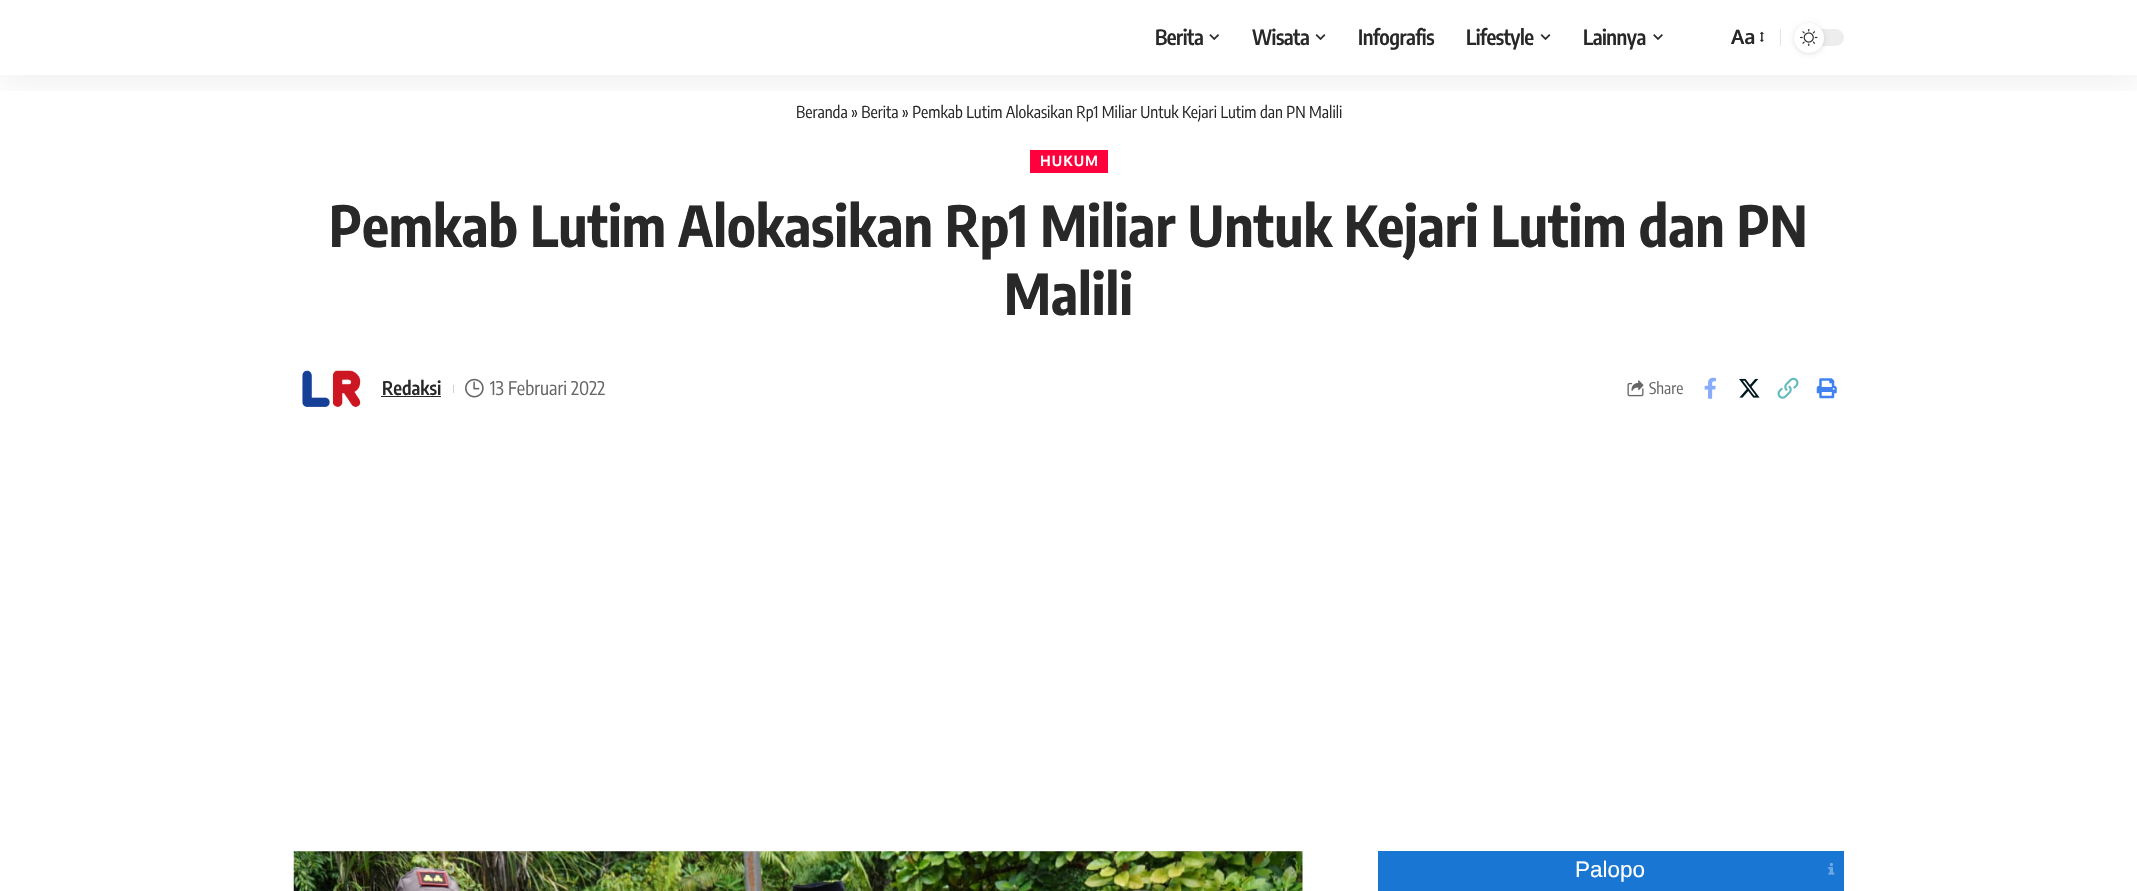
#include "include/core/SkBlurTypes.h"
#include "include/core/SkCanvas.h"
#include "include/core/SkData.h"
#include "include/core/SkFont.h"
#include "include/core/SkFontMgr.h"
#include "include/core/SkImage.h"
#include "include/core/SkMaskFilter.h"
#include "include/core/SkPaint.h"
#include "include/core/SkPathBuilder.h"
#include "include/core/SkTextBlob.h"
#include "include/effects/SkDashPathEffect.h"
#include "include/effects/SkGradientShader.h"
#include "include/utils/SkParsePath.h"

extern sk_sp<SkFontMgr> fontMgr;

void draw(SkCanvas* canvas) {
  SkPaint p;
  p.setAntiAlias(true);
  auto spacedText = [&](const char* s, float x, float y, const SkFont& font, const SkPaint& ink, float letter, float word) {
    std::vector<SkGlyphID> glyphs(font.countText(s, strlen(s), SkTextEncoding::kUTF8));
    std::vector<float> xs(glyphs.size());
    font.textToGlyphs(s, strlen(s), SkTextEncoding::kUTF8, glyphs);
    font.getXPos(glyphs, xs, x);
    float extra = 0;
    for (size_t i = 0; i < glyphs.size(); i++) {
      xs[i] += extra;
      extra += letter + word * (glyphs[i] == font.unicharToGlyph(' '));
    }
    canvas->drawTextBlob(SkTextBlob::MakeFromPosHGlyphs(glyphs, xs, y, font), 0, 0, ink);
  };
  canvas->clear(SK_ColorWHITE);
  canvas->save();
  canvas->clipRect(SkRect::MakeLTRB(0, 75, 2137, 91));
  p.setColor(SkColorSetARGB(18, 0, 0, 0));
  p.setMaskFilter(SkMaskFilter::MakeBlur(kNormal_SkBlurStyle, 19));
  canvas->drawRect(SkRect::MakeLTRB(0, 5, 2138, 80), p);
  p.setMaskFilter(nullptr);
  canvas->restore();
  canvas->drawImageRect(SkImages::DeferredFromEncodedData(SkData::MakeFromFileName("images/1.png")), SkRect::MakeLTRB(1209, 34, 1220, 41), SkSamplingOptions());
  canvas->drawImageRect(SkImages::DeferredFromEncodedData(SkData::MakeFromFileName("images/2.png")), SkRect::MakeLTRB(1315, 34, 1326, 41), SkSamplingOptions());
  canvas->drawImageRect(SkImages::DeferredFromEncodedData(SkData::MakeFromFileName("images/2.png")), SkRect::MakeLTRB(1540, 34, 1551, 41), SkSamplingOptions());
  canvas->drawImageRect(SkImages::DeferredFromEncodedData(SkData::MakeFromFileName("images/3.png")), SkRect::MakeLTRB(1653, 34, 1663, 40), SkSamplingOptions());
  canvas->drawImageRect(SkImages::DeferredFromEncodedData(SkData::MakeFromFileName("images/4.png")), SkRect::MakeLTRB(1760, 31, 1764, 42), SkSamplingOptions());
  p.setColor(SkColorSetRGB(228, 228, 228));
  canvas->drawRect(SkRect::MakeLTRB(1780, 29, 1781, 46), p);
  p.setColor(SkColorSetRGB(237, 237, 237));
  canvas->drawRoundRect(SkRect::MakeLTRB(1794, 29, 1844, 46), 8.5f, 8.5f, p);
  p.setColor(SkColorSetARGB(31, 0, 0, 0));
  p.setMaskFilter(SkMaskFilter::MakeBlur(kNormal_SkBlurStyle, 2.5f));
  canvas->drawRoundRect(SkRect::MakeLTRB(1794, 24, 1824, 54), 15, 15, p);
  p.setMaskFilter(nullptr);
  p.setColor(SK_ColorWHITE);
  canvas->drawCircle(1809, 38, 15, p);
  canvas->drawImageRect(SkImages::DeferredFromEncodedData(SkData::MakeFromFileName("images/5.png")), SkRect::MakeLTRB(1800, 29, 1818, 46), SkSamplingOptions());
  p.setColor(SkColorSetRGB(255, 0, 60));
  canvas->drawRect(SkRect::MakeLTRB(1030, 150, 1108, 173), p);
  canvas->drawImageRect(SkImages::DeferredFromEncodedData(SkData::MakeFromFileName("images/6.png")), SkRect::MakeLTRB(302, 370, 361, 407), SkSamplingOptions());
  p.setColor(SkColorSetRGB(40, 40, 40));
  canvas->drawRect(SkRect::MakeLTRB(381, 396, 441, 397), p);
  p.setColor(SkColorSetRGB(209, 209, 209));
  canvas->drawRect(SkRect::MakeLTRB(453, 385, 454, 393), p);
  canvas->drawImageRect(SkImages::DeferredFromEncodedData(SkData::MakeFromFileName("images/7.png")), SkRect::MakeLTRB(465, 378, 484, 398), SkSamplingOptions());
  canvas->drawImageRect(SkImages::DeferredFromEncodedData(SkData::MakeFromFileName("images/8.png")), SkRect::MakeLTRB(1627, 380, 1644, 397), SkSamplingOptions());
  canvas->drawImageRect(SkImages::DeferredFromEncodedData(SkData::MakeFromFileName("images/9.png")), SkRect::MakeLTRB(1704, 377, 1716, 399), SkSamplingOptions());
  canvas->drawImageRect(SkImages::DeferredFromEncodedData(SkData::MakeFromFileName("images/10.png")), SkRect::MakeLTRB(1739, 378, 1760, 398), SkSamplingOptions());
  canvas->drawImageRect(SkImages::DeferredFromEncodedData(SkData::MakeFromFileName("images/11.png")), SkRect::MakeLTRB(1777, 377, 1799, 399), SkSamplingOptions());
  canvas->drawImageRect(SkImages::DeferredFromEncodedData(SkData::MakeFromFileName("images/12.png")), SkRect::MakeLTRB(1816, 378, 1837, 399), SkSamplingOptions());
  canvas->drawImageRect(SkImages::DeferredFromEncodedData(SkData::MakeFromFileName("images/13.png")), SkRect::MakeLTRB(293, 851, 1303, 891), SkSamplingOptions());
  p.setColor(SkColorSetRGB(25, 118, 210));
  canvas->drawRect(SkRect::MakeLTRB(1378, 851, 1844, 891), p);
  canvas->drawImageRect(SkImages::DeferredFromEncodedData(SkData::MakeFromFileName("images/14.png")), SkRect::MakeLTRB(1828, 863, 1835, 875), SkSamplingOptions());
  SkFont font1(fontMgr->matchFamilyStyle("Encode Sans Condensed", SkFontStyle(600, SkFontStyle::kNormal_Width, SkFontStyle::kUpright_Slant)), 21);
  font1.setSubpixel(true);
  p.setColor(SkColorSetRGB(40, 40, 40));
  spacedText("Berita", 1155, 45, font1, p, -0.5f, 0);
  spacedText("Wisata", 1252, 45, font1, p, -0.5f, 0);
  spacedText("Infografis", 1358, 45, font1, p, -0.5f, 0);
  spacedText("Lifestyle", 1466, 45, font1, p, -0.5f, 0);
  spacedText("Lainnya", 1583, 45, font1, p, -0.5f, 0);
  SkFont font2(fontMgr->matchFamilyStyle("Oxygen", SkFontStyle::Bold()), 20);
  font2.setSubpixel(true);
  canvas->drawString("Aa", 1731, 44, font2, p);
  SkFont font3(fontMgr->matchFamilyStyle("Encode Sans Condensed", SkFontStyle::Normal()), 16.25f);
  font3.setSubpixel(true);
  canvas->drawString("Beranda » Berita » Pemkab Lutim Alokasikan Rp1 Miliar Untuk Kejari Lutim dan PN Malili", 796, 118, font3, p);
  SkFont font4(fontMgr->matchFamilyStyle("Oxygen", SkFontStyle::Bold()), 14.5f);
  font4.setSubpixel(true);
  p.setColor(SK_ColorWHITE);
  spacedText("HUKUM", 1040, 166, font4, p, 1, 0);
  SkFont font5(fontMgr->matchFamilyStyle("Encode Sans Condensed", SkFontStyle::Bold()), 56.25f);
  font5.setSubpixel(true);
  p.setColor(SkColorSetRGB(40, 40, 40));
  canvas->drawString("Pemkab Lutim Alokasikan Rp1 Miliar Untuk Kejari Lutim dan PN", 329, 247, font5, p);
  canvas->drawString("Malili", 1004, 315, font5, p);
  SkFont font6(fontMgr->matchFamilyStyle("Encode Sans Condensed", SkFontStyle(600, SkFontStyle::kNormal_Width, SkFontStyle::kUpright_Slant)), 18.75f);
  font6.setSubpixel(true);
  canvas->drawString("Redaksi", 382, 395, font6, p);
  SkFont font7(fontMgr->matchFamilyStyle("Encode Sans Condensed", SkFontStyle::Normal()), 18.75f);
  font7.setSubpixel(true);
  p.setColor(SkColorSetRGB(102, 102, 102));
  canvas->drawString("13 Februari 2022", 490, 395, font7, p);
  SkFont font8(fontMgr->matchFamilyStyle("Encode Sans Condensed", SkFontStyle::Normal()), 16);
  font8.setSubpixel(true);
  canvas->drawString("Share", 1649, 394, font8, p);
  SkFont font9(fontMgr->matchFamilyStyle("Liberation Sans", SkFontStyle::Normal()), 22.5f);
  font9.setSubpixel(true);
  p.setColor(SK_ColorWHITE);
  canvas->drawString("Palopo", 1575, 877, font9, p);
}
